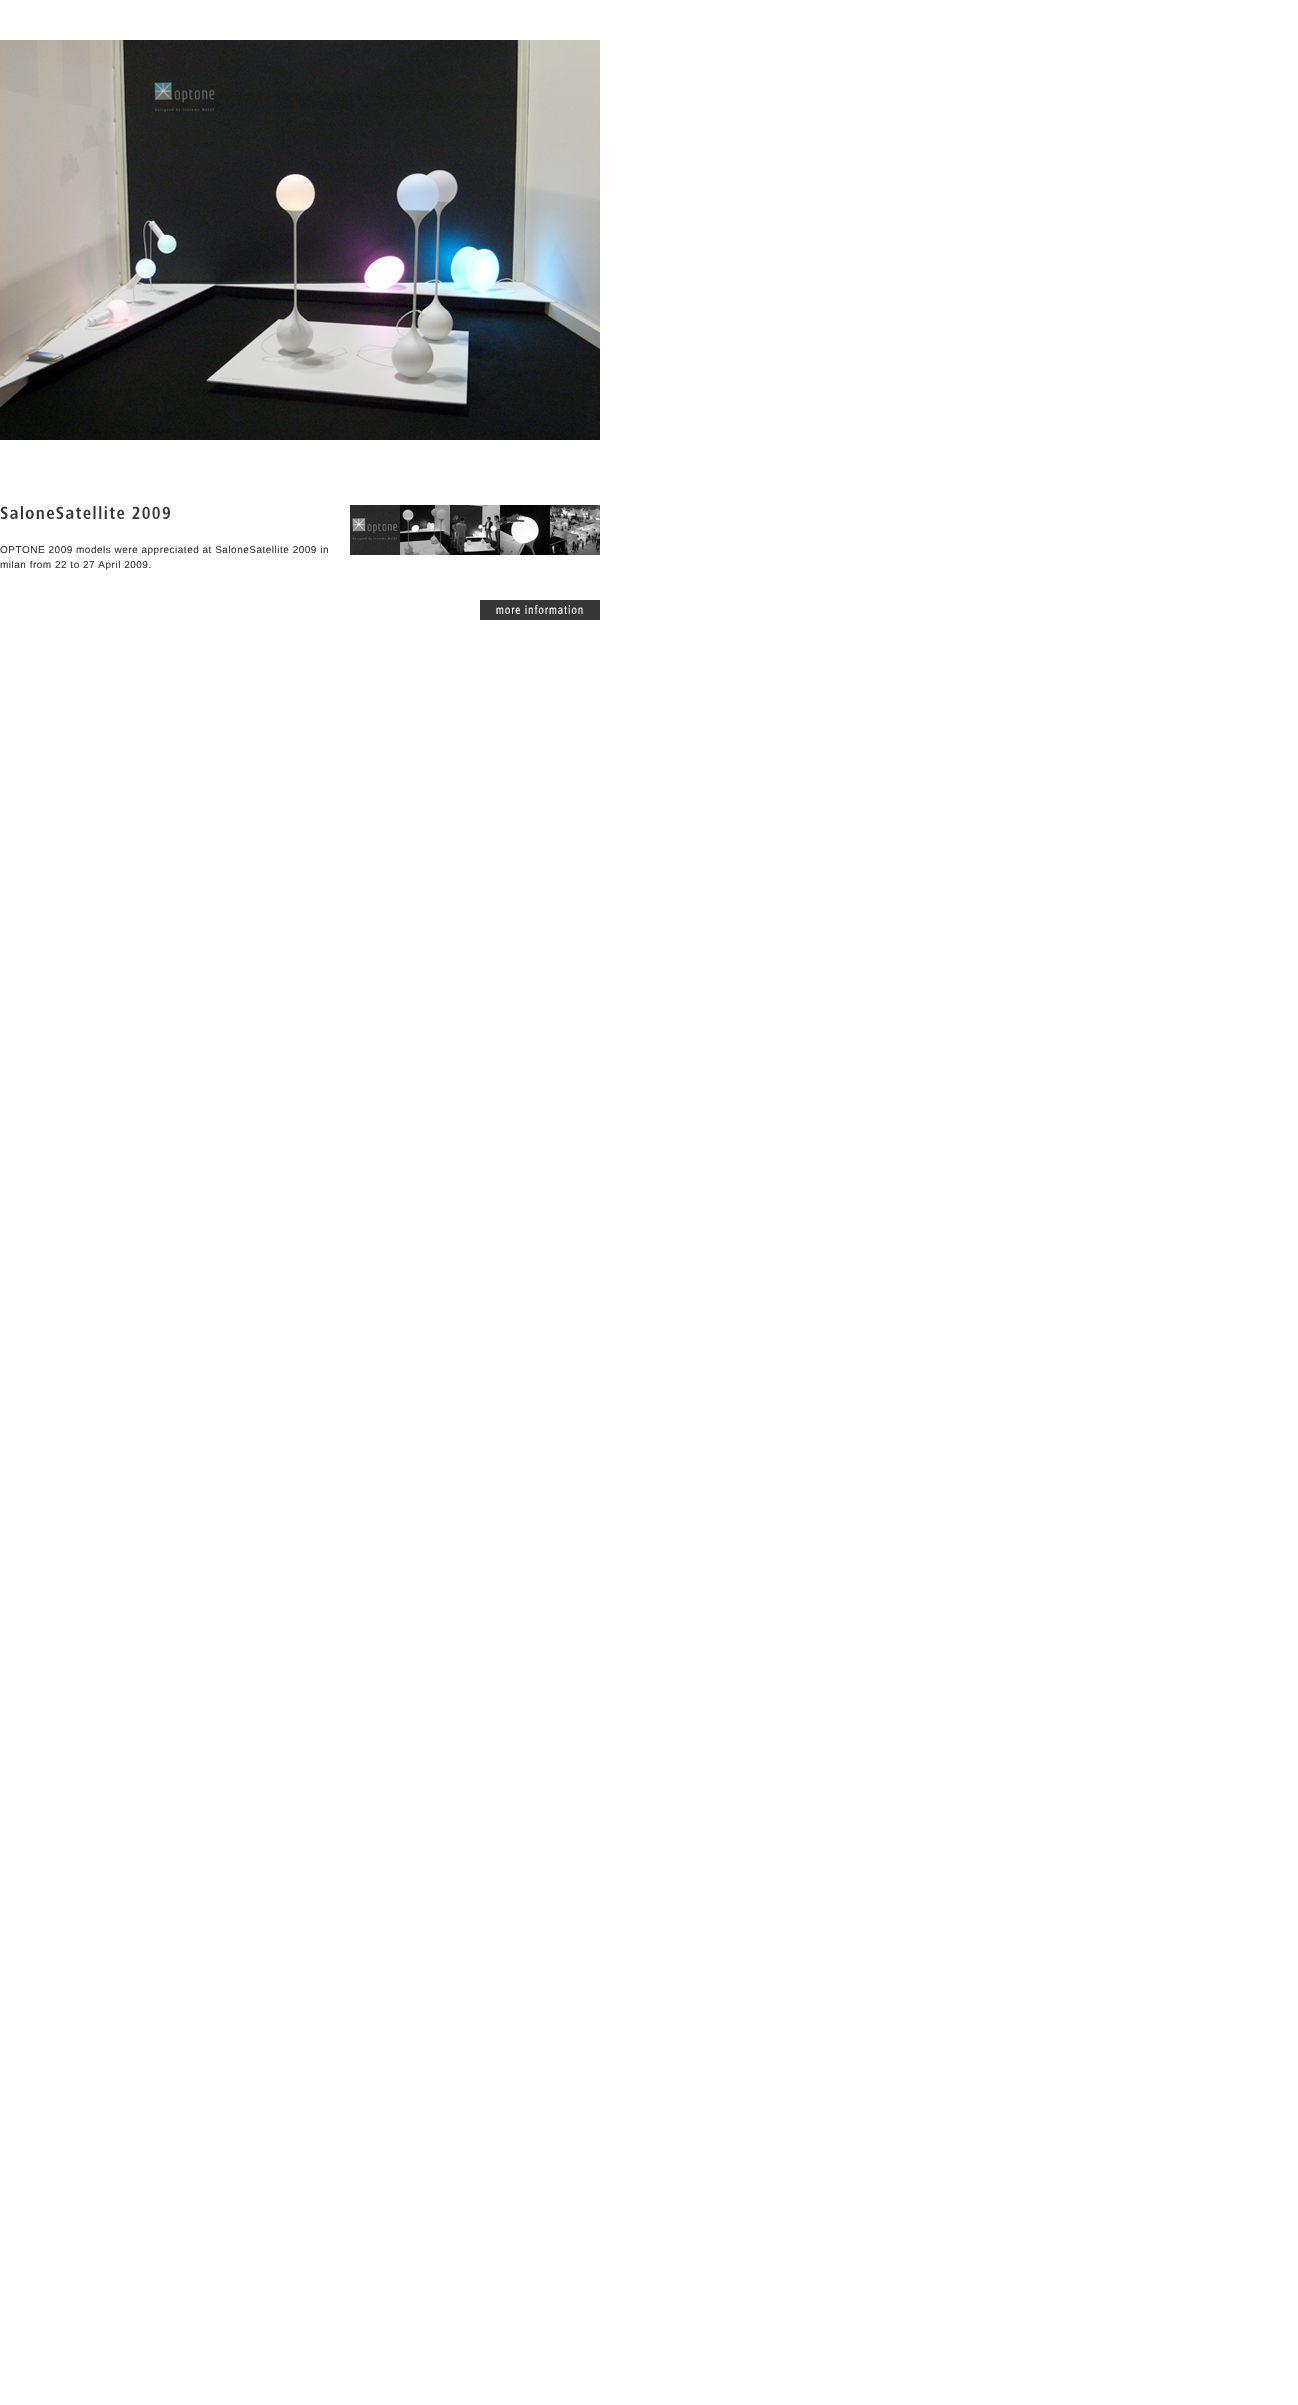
#include "include/core/SkBlurTypes.h"
#include "include/core/SkCanvas.h"
#include "include/core/SkData.h"
#include "include/core/SkFont.h"
#include "include/core/SkFontMgr.h"
#include "include/core/SkImage.h"
#include "include/core/SkMaskFilter.h"
#include "include/core/SkPaint.h"
#include "include/core/SkPathBuilder.h"
#include "include/core/SkTextBlob.h"
#include "include/effects/SkDashPathEffect.h"
#include "include/effects/SkGradientShader.h"
#include "include/utils/SkParsePath.h"

extern sk_sp<SkFontMgr> fontMgr;

void draw(SkCanvas* canvas) {
  SkPaint p;
  p.setAntiAlias(true);
  auto spacedText = [&](const char* s, float x, float y, const SkFont& font, const SkPaint& ink, float letter, float word) {
    std::vector<SkGlyphID> glyphs(font.countText(s, strlen(s), SkTextEncoding::kUTF8));
    std::vector<float> xs(glyphs.size());
    font.textToGlyphs(s, strlen(s), SkTextEncoding::kUTF8, glyphs);
    font.getXPos(glyphs, xs, x);
    float extra = 0;
    for (size_t i = 0; i < glyphs.size(); i++) {
      xs[i] += extra;
      extra += letter + word * (glyphs[i] == font.unicharToGlyph(' '));
    }
    canvas->drawTextBlob(SkTextBlob::MakeFromPosHGlyphs(glyphs, xs, y, font), 0, 0, ink);
  };
  canvas->clear(SK_ColorWHITE);
  canvas->drawImageRect(SkImages::DeferredFromEncodedData(SkData::MakeFromFileName("images/1.png")), SkRect::MakeLTRB(0, 40, 600, 440), SkSamplingOptions());
  canvas->drawImageRect(SkImages::DeferredFromEncodedData(SkData::MakeFromFileName("images/2.png")), SkRect::MakeLTRB(350, 505, 400, 555), SkSamplingOptions());
  canvas->drawImageRect(SkImages::DeferredFromEncodedData(SkData::MakeFromFileName("images/3.png")), SkRect::MakeLTRB(400, 505, 450, 555), SkSamplingOptions());
  canvas->drawImageRect(SkImages::DeferredFromEncodedData(SkData::MakeFromFileName("images/4.png")), SkRect::MakeLTRB(450, 505, 500, 555), SkSamplingOptions());
  canvas->drawImageRect(SkImages::DeferredFromEncodedData(SkData::MakeFromFileName("images/5.png")), SkRect::MakeLTRB(500, 505, 550, 555), SkSamplingOptions());
  canvas->drawImageRect(SkImages::DeferredFromEncodedData(SkData::MakeFromFileName("images/6.png")), SkRect::MakeLTRB(550, 505, 600, 555), SkSamplingOptions());
  canvas->drawImageRect(SkImages::DeferredFromEncodedData(SkData::MakeFromFileName("images/7.png")), SkRect::MakeLTRB(0, 506, 170, 519), SkSamplingOptions());
  canvas->drawImageRect(SkImages::DeferredFromEncodedData(SkData::MakeFromFileName("images/8.png")), SkRect::MakeLTRB(480, 600, 600, 620), SkSamplingOptions());
  SkFont font1(fontMgr->matchFamilyStyle("Liberation Sans", SkFontStyle::Normal()), 10);
  font1.setSubpixel(true);
  p.setColor(SkColorSetRGB(55, 55, 55));
  spacedText("OPTONE 2009 models were appreciated at SaloneSatellite 2009 in", 0, 553, font1, p, 0.5f, 0);
  spacedText("milan from 22 to 27 April 2009.", 0, 568, font1, p, 0.5f, 0);
}
